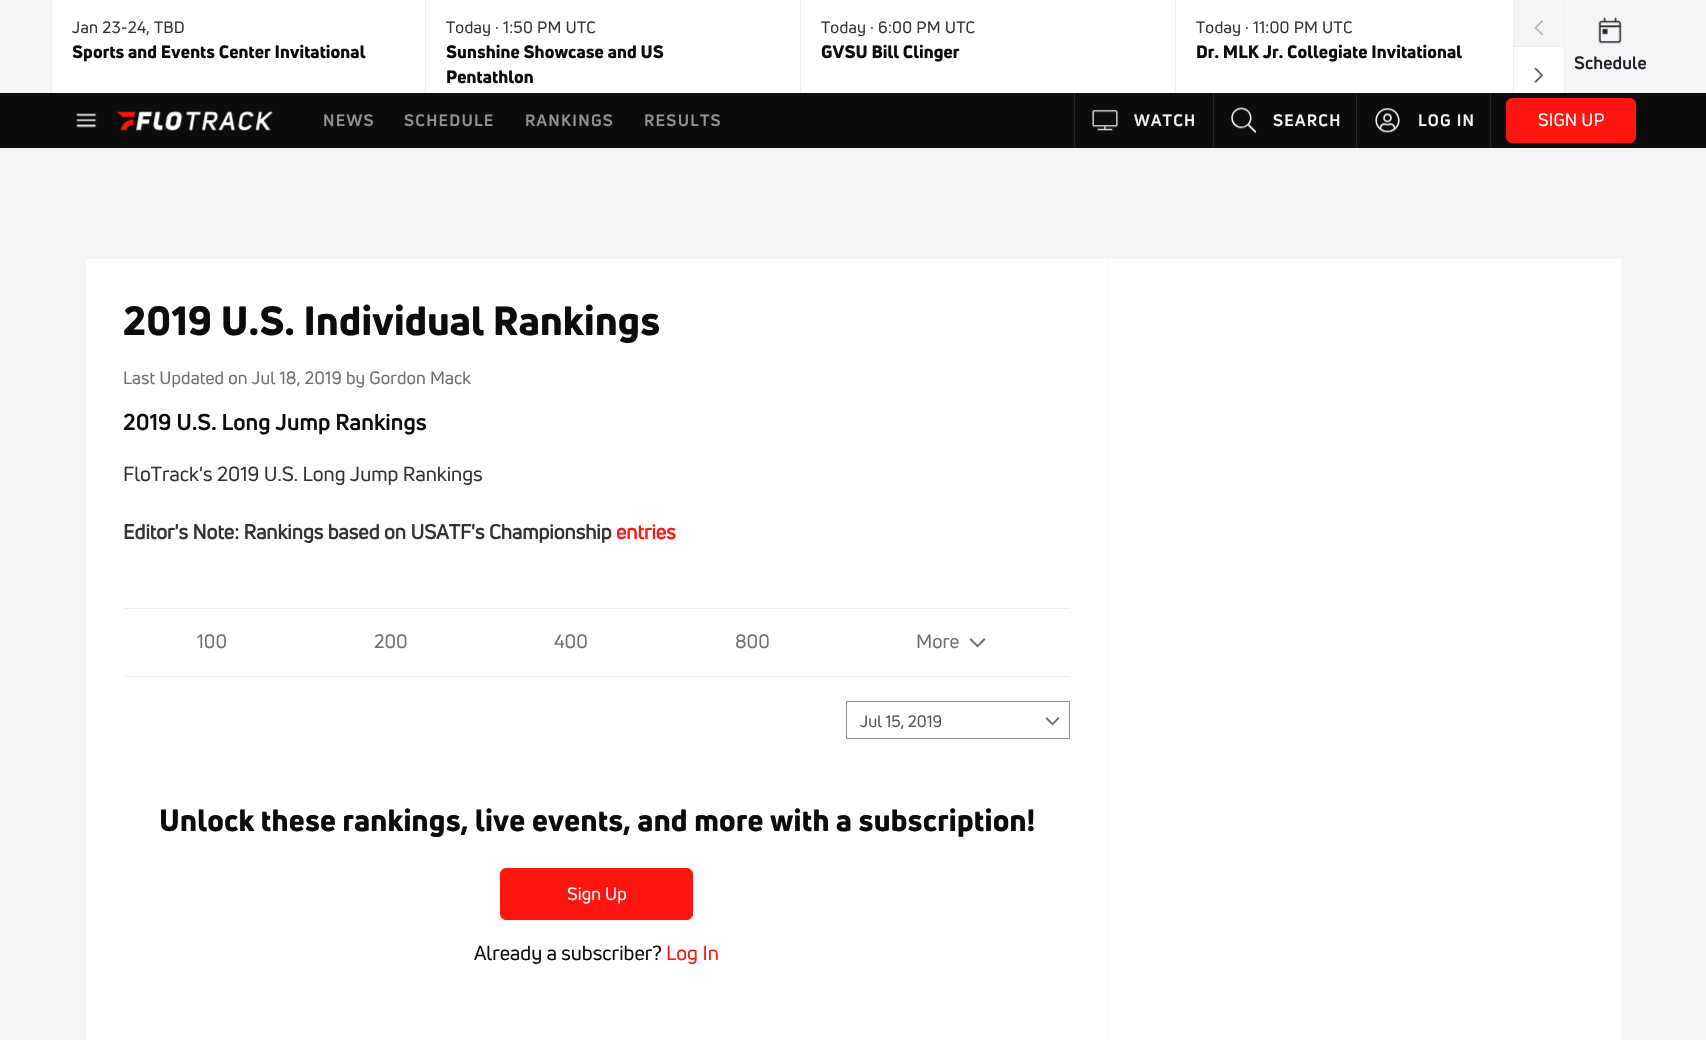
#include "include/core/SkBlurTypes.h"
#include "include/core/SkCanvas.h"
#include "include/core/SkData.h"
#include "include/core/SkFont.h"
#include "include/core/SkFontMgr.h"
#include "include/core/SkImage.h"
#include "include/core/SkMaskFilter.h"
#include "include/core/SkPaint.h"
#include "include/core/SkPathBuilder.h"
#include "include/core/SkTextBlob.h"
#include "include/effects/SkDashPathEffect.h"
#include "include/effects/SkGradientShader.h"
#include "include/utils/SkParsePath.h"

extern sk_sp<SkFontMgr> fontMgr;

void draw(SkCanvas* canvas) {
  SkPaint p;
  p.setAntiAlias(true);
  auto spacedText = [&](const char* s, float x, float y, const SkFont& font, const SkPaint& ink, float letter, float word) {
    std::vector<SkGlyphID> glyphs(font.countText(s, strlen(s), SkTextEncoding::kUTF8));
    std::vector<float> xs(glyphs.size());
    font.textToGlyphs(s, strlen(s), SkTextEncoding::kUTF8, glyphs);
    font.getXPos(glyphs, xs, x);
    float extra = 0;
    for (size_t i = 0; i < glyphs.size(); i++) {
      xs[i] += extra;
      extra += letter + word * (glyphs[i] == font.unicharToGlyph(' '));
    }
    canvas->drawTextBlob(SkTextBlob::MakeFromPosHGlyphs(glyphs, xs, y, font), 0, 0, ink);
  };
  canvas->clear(SkColorSetRGB(245, 245, 247));
  p.setColor(SK_ColorWHITE);
  canvas->drawRect(SkRect::MakeLTRB(52, 0, 1564, 93), p);
  p.setColor(SkColorSetRGB(238, 238, 240));
  canvas->drawRect(SkRect::MakeLTRB(425, 0, 426, 93), p);
  canvas->drawRect(SkRect::MakeLTRB(51, 0, 52, 93), p);
  canvas->drawRect(SkRect::MakeLTRB(800, 0, 801, 93), p);
  canvas->drawRect(SkRect::MakeLTRB(1175, 0, 1176, 93), p);
  canvas->drawRect(SkRect::MakeLTRB(1513, 0, 1514, 93), p);
  p.setColor(SkColorSetRGB(245, 245, 247));
  canvas->drawRect(SkRect::MakeLTRB(1514, 0, 1564, 46), p);
  canvas->drawImageRect(SkImages::DeferredFromEncodedData(SkData::MakeFromFileName("images/1.png")), SkRect::MakeLTRB(1534, 20, 1543, 36), SkSamplingOptions());
  p.setColor(SkColorSetRGB(238, 238, 240));
  canvas->drawRect(SkRect::MakeLTRB(1514, 46, 1564, 47), p);
  canvas->drawImageRect(SkImages::DeferredFromEncodedData(SkData::MakeFromFileName("images/2.png")), SkRect::MakeLTRB(1534, 67, 1543, 84), SkSamplingOptions());
  canvas->drawRect(SkRect::MakeLTRB(1564, 0, 1565, 93), p);
  canvas->drawImageRect(SkImages::DeferredFromEncodedData(SkData::MakeFromFileName("images/3.png")), SkRect::MakeLTRB(1598, 17, 1622, 44), SkSamplingOptions());
  p.setColor(SkColorSetRGB(12, 12, 12));
  canvas->drawRect(SkRect::MakeLTRB(0, 93, 1706, 148), p);
  canvas->drawImageRect(SkImages::DeferredFromEncodedData(SkData::MakeFromFileName("images/4.png")), SkRect::MakeLTRB(76, 113, 97, 128), SkSamplingOptions());
  canvas->drawImageRect(SkImages::DeferredFromEncodedData(SkData::MakeFromFileName("images/5.png")), SkRect::MakeLTRB(116, 111, 273, 131), SkSamplingOptions());
  p.setColor(SkColorSetRGB(35, 35, 39));
  canvas->drawRect(SkRect::MakeLTRB(1074, 93, 1075, 148), p);
  canvas->drawImageRect(SkImages::DeferredFromEncodedData(SkData::MakeFromFileName("images/6.png")), SkRect::MakeLTRB(1092, 110, 1118, 131), SkSamplingOptions());
  canvas->drawRect(SkRect::MakeLTRB(1213, 93, 1214, 148), p);
  canvas->drawImageRect(SkImages::DeferredFromEncodedData(SkData::MakeFromFileName("images/7.png")), SkRect::MakeLTRB(1231, 107, 1257, 134), SkSamplingOptions());
  canvas->drawRect(SkRect::MakeLTRB(1490, 93, 1491, 148), p);
  canvas->drawRect(SkRect::MakeLTRB(1356, 93, 1357, 148), p);
  canvas->drawImageRect(SkImages::DeferredFromEncodedData(SkData::MakeFromFileName("images/8.png")), SkRect::MakeLTRB(1375, 108, 1400, 133), SkSamplingOptions());
  p.setColor(SkColorSetRGB(255, 20, 15));
  canvas->drawRoundRect(SkRect::MakeLTRB(1506.5f, 98.5f, 1635.5f, 142.5f), 5.5f, 5.5f, p);
  p.setStyle(SkPaint::kStroke_Style);
  p.setStrokeWidth(1);
  canvas->drawRoundRect(SkRect::MakeLTRB(1506.5f, 98.5f, 1635.5f, 142.5f), 5.5f, 5.5f, p);
  p.setStyle(SkPaint::kFill_Style);
  p.setColor(SK_ColorWHITE);
  canvas->drawRect(SkRect::MakeLTRB(86, 259, 1621, 1040), p);
  p.setColor(SkColorSetRGB(245, 245, 247));
  canvas->drawRect(SkRect::MakeLTRB(1108, 259, 1109, 1040), p);
  p.setColor(SkColorSetRGB(238, 238, 240));
  canvas->drawRect(SkRect::MakeLTRB(124, 608, 1070, 609), p);
  canvas->drawRect(SkRect::MakeLTRB(124, 676, 1070, 677), p);
  canvas->drawImageRect(SkImages::DeferredFromEncodedData(SkData::MakeFromFileName("images/9.png")), SkRect::MakeLTRB(969, 638, 986, 648), SkSamplingOptions());
  p.setStyle(SkPaint::kStroke_Style);
  p.setColor(SkColorSetRGB(147, 147, 150));
  canvas->drawRect(SkRect::MakeLTRB(846.5f, 701.5f, 1069.5f, 738.5f), p);
  canvas->drawImageRect(SkImages::DeferredFromEncodedData(SkData::MakeFromFileName("images/10.png")), SkRect::MakeLTRB(1045, 717, 1060, 726), SkSamplingOptions());
  p.setStyle(SkPaint::kFill_Style);
  p.setColor(SkColorSetRGB(255, 20, 15));
  canvas->drawRoundRect(SkRect::MakeLTRB(500.5f, 868.5f, 692.5f, 919.5f), 5.5f, 5.5f, p);
  p.setStyle(SkPaint::kStroke_Style);
  canvas->drawRoundRect(SkRect::MakeLTRB(500.5f, 868.5f, 692.5f, 919.5f), 5.5f, 5.5f, p);
  SkFont font1(fontMgr->matchFamilyStyle("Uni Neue", SkFontStyle::Normal()), 16.25f);
  font1.setSubpixel(true);
  p.setStyle(SkPaint::kFill_Style);
  p.setColor(SkColorSetRGB(50, 50, 54));
  spacedText("Jan 23-24, TBD", 72, 33, font1, p, 0.25f, 0);
  canvas->save();
  canvas->clipRect(SkRect::MakeLTRB(73, 39, 378, 64));
  SkFont font2(fontMgr->matchFamilyStyle("Uni Neue", SkFontStyle(900, SkFontStyle::kNormal_Width, SkFontStyle::kUpright_Slant)), 17.5f);
  font2.setSubpixel(true);
  p.setColor(SkColorSetRGB(12, 12, 12));
  spacedText("Sports and Events Center Invitational", 72, 58, font2, p, 0.1f, 0);
  canvas->restore();
  canvas->save();
  canvas->clipRect(SkRect::MakeLTRB(446, 10, 780, 36));
  p.setColor(SkColorSetRGB(50, 50, 54));
  spacedText("Today · 1:50 PM UTC", 446, 33, font1, p, 0.25f, 0);
  canvas->restore();
  p.setColor(SkColorSetRGB(12, 12, 12));
  spacedText("Sunshine Showcase and US", 446, 58, font2, p, 0.1f, 0);
  spacedText("Pentathlon", 446, 83, font2, p, 0.1f, 0);
  canvas->save();
  canvas->clipRect(SkRect::MakeLTRB(821, 10, 1155, 36));
  p.setColor(SkColorSetRGB(50, 50, 54));
  spacedText("Today · 6:00 PM UTC", 821, 33, font1, p, 0.25f, 0);
  canvas->restore();
  p.setColor(SkColorSetRGB(12, 12, 12));
  spacedText("GVSU Bill Clinger", 821, 58, font2, p, 0.1f, 0);
  canvas->save();
  canvas->clipRect(SkRect::MakeLTRB(1196, 10, 1513, 36));
  p.setColor(SkColorSetRGB(50, 50, 54));
  spacedText("Today · 11:00 PM UTC", 1196, 33, font1, p, 0.25f, 0);
  canvas->restore();
  p.setColor(SkColorSetRGB(12, 12, 12));
  spacedText("Dr. MLK Jr. Collegiate Invitational", 1196, 58, font2, p, 0.1f, 0);
  SkFont font3(fontMgr->matchFamilyStyle("Uni Neue", SkFontStyle::Bold()), 17.5f);
  font3.setSubpixel(true);
  p.setColor(SkColorSetRGB(35, 35, 39));
  spacedText("Schedule", 1574, 69, font3, p, 0.1f, 0);
  SkFont font4(fontMgr->matchFamilyStyle("Uni Neue", SkFontStyle::Bold()), 16.25f);
  font4.setSubpixel(true);
  p.setColor(SkColorSetRGB(147, 147, 150));
  spacedText("NEWS", 323, 126, font4, p, 1.25f, 0);
  spacedText("SCHEDULE", 404, 126, font4, p, 1.25f, 0);
  spacedText("RANKINGS", 525, 126, font4, p, 1.25f, 0);
  spacedText("RESULTS", 644, 126, font4, p, 1.25f, 0);
  p.setColor(SkColorSetRGB(245, 245, 247));
  spacedText("WATCH", 1134, 126, font4, p, 1.25f, 0);
  spacedText("SEARCH", 1273, 126, font4, p, 1.25f, 0);
  spacedText("LOG IN", 1418, 126, font4, p, 1.25f, 0);
  SkFont font5(fontMgr->matchFamilyStyle("Uni Neue", SkFontStyle::Normal()), 17.5f);
  font5.setSubpixel(true);
  p.setColor(SK_ColorWHITE);
  spacedText("SIGN UP", 1538, 126, font5, p, 0.1f, 0);
  SkFont font6(fontMgr->matchFamilyStyle("Uni Neue", SkFontStyle(900, SkFontStyle::kNormal_Width, SkFontStyle::kUpright_Slant)), 40);
  font6.setSubpixel(true);
  p.setColor(SkColorSetRGB(12, 12, 12));
  spacedText("2019 U.S. Individual Rankings", 123, 335, font6, p, 0.25f, 0);
  p.setColor(SkColorSetRGB(111, 111, 115));
  spacedText("Last Updated on Jul 18, 2019 by Gordon Mack", 123, 384, font5, p, 0.1f, 0);
  SkFont font7(fontMgr->matchFamilyStyle("Uni Neue", SkFontStyle::Bold()), 22.5f);
  font7.setSubpixel(true);
  p.setColor(SkColorSetRGB(12, 12, 12));
  canvas->drawString("2019 U.S. Long Jump Rankings", 123, 430, font7, p);
  SkFont font8(fontMgr->matchFamilyStyle("Uni Neue", SkFontStyle::Normal()), 20);
  font8.setSubpixel(true);
  p.setColor(SkColorSetRGB(50, 50, 54));
  canvas->drawString("FloTrack's 2019 U.S. Long Jump Rankings", 123, 481, font8, p);
  SkFont font9(fontMgr->matchFamilyStyle("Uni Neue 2", SkFontStyle::Bold()), 20);
  font9.setSubpixel(true);
  canvas->drawString("Editor's Note: Rankings based on USATF's Championship", 123, 539, font9, p);
  p.setColor(SkColorSetRGB(255, 20, 15));
  canvas->drawString("entries", 616, 539, font9, p);
  SkFont font10(fontMgr->matchFamilyStyle("Uni Neue", SkFontStyle::Normal()), 19);
  font10.setSubpixel(true);
  p.setColor(SkColorSetRGB(111, 111, 115));
  canvas->drawString("100", 197, 648, font10, p);
  canvas->drawString("200", 374, 648, font10, p);
  canvas->drawString("400", 554, 648, font10, p);
  canvas->drawString("800", 735, 648, font10, p);
  canvas->drawString("More", 916, 648, font10, p);
  p.setColor(SkColorSetRGB(83, 83, 87));
  canvas->drawString("Jul 15, 2019", 860, 727, font1, p);
  SkFont font11(fontMgr->matchFamilyStyle("Uni Neue", SkFontStyle(900, SkFontStyle::kNormal_Width, SkFontStyle::kUpright_Slant)), 30);
  font11.setSubpixel(true);
  p.setColor(SkColorSetRGB(12, 12, 12));
  spacedText("Unlock these rankings, live events, and more with a subscription!", 159, 831, font11, p, 0.25f, 0);
  p.setColor(SK_ColorWHITE);
  spacedText("Sign Up", 567, 900, font5, p, 0.1f, 0);
  p.setColor(SkColorSetRGB(12, 12, 12));
  canvas->drawString("Already a subscriber?", 474, 960, font8, p);
  p.setColor(SkColorSetRGB(255, 20, 15));
  canvas->drawString("Log In", 666, 960, font8, p);
}
